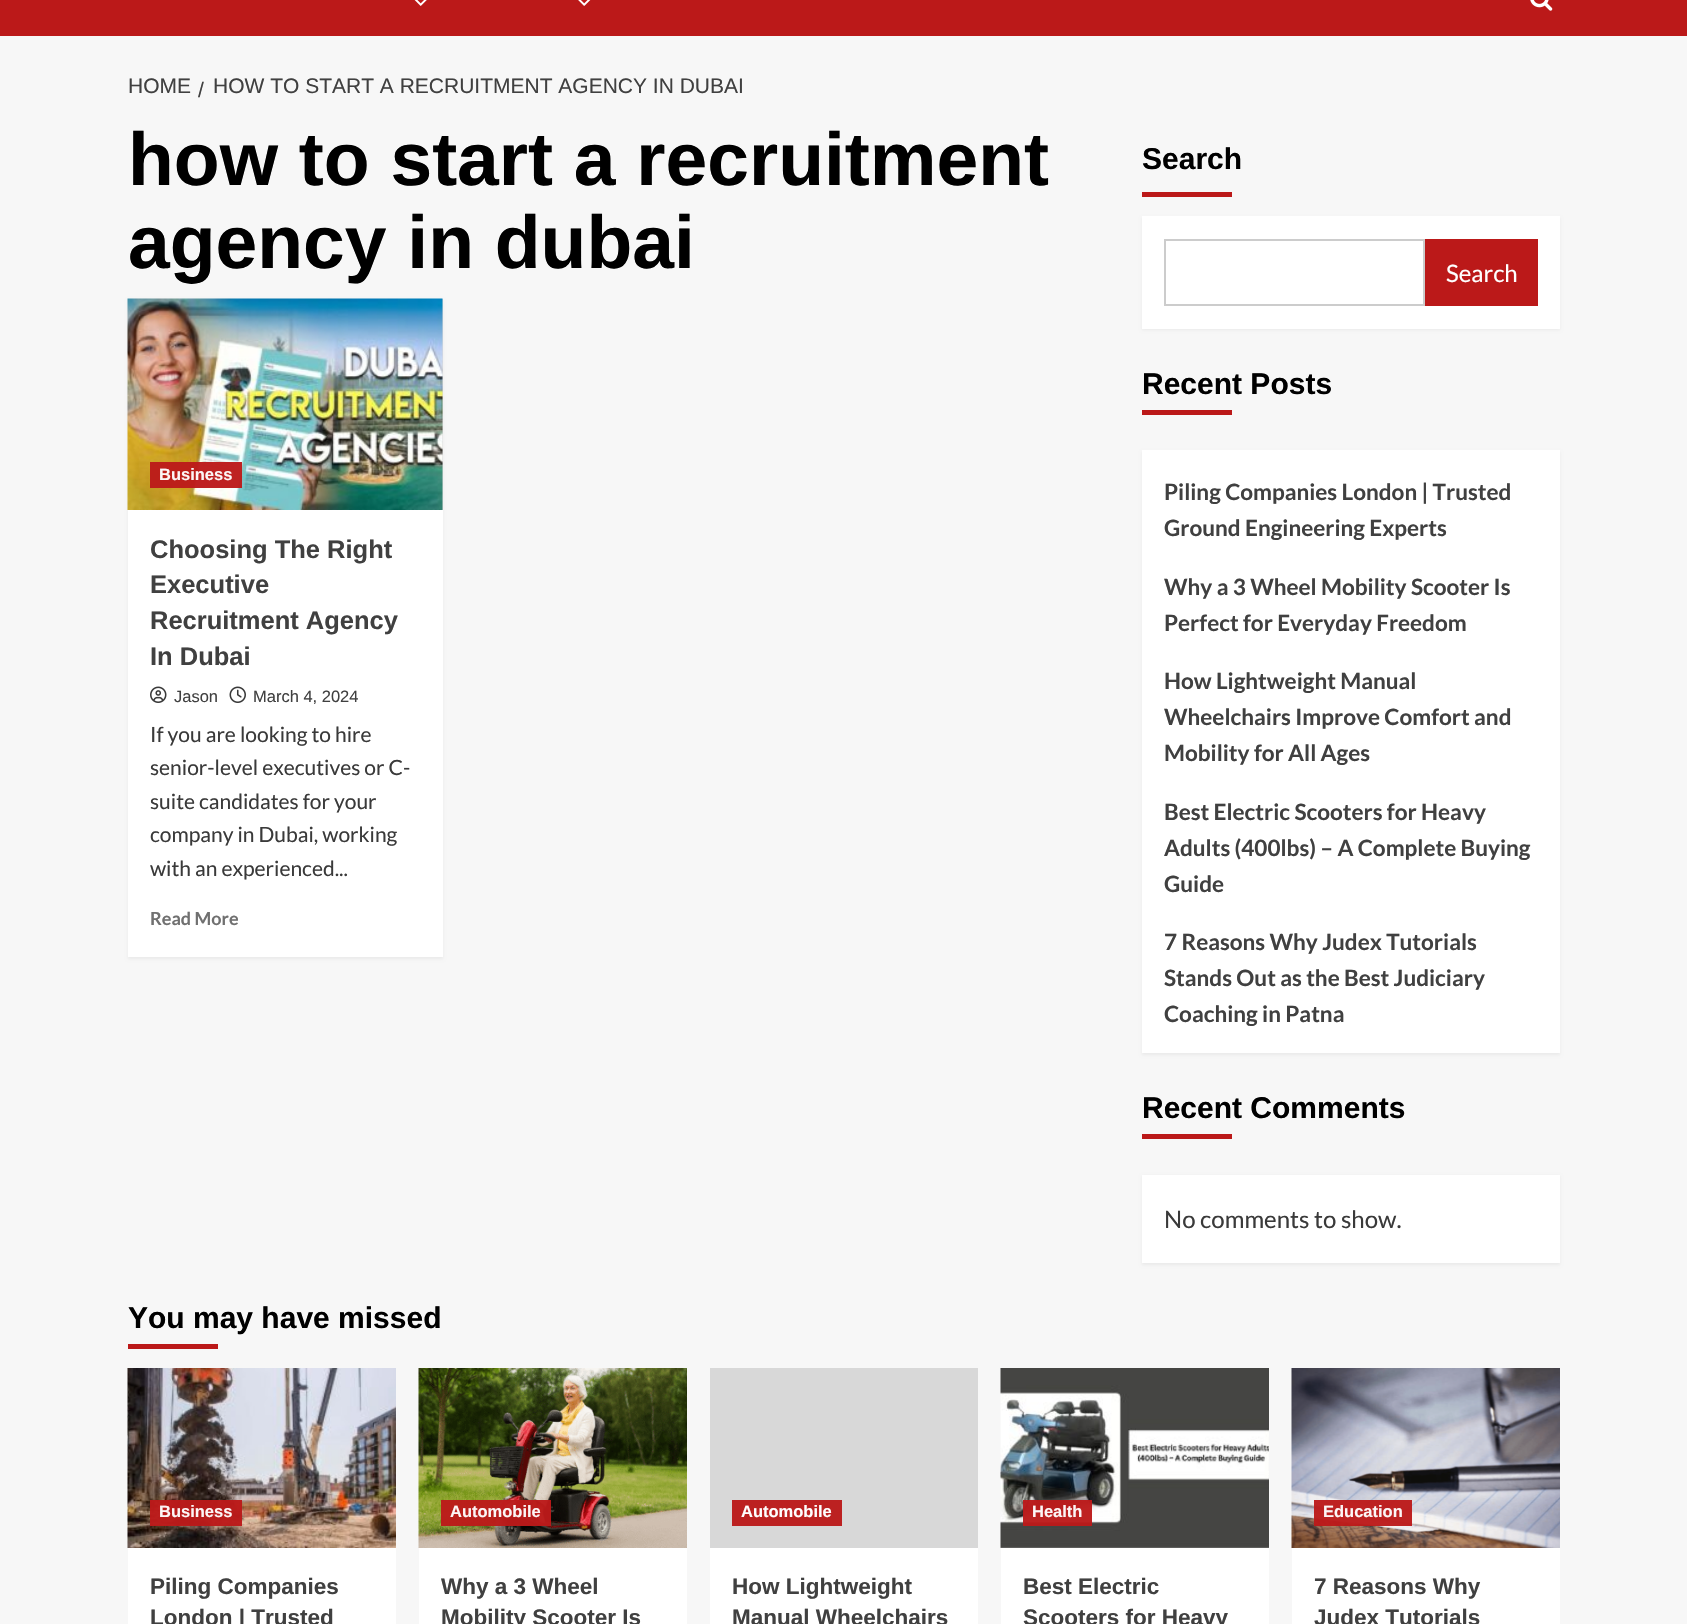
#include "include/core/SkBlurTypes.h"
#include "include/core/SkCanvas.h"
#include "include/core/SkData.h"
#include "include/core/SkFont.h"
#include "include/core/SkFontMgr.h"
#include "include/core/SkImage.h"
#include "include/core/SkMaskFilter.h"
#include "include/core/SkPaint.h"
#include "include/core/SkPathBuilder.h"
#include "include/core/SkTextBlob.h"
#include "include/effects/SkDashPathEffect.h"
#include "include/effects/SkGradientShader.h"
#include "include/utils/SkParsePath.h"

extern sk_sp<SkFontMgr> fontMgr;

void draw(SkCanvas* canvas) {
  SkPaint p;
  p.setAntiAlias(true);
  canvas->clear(SkColorSetRGB(247, 247, 247));
  p.setColor(SkColorSetRGB(187, 25, 25));
  canvas->drawRect(SkRect::MakeLTRB(0, 0, 1687, 36), p);
  canvas->drawImageRect(SkImages::DeferredFromEncodedData(SkData::MakeFromFileName("images/1.png")), SkRect::MakeLTRB(414, 0, 427, 6), SkSamplingOptions());
  canvas->drawImageRect(SkImages::DeferredFromEncodedData(SkData::MakeFromFileName("images/2.png")), SkRect::MakeLTRB(578, 0, 591, 6), SkSamplingOptions());
  canvas->drawImageRect(SkImages::DeferredFromEncodedData(SkData::MakeFromFileName("images/3.png")), SkRect::MakeLTRB(1530, 0, 1553, 11), SkSamplingOptions());
  p.setColor(SkColorSetARGB(13, 0, 0, 0));
  p.setMaskFilter(SkMaskFilter::MakeBlur(kNormal_SkBlurStyle, 1.5f));
  canvas->drawRect(SkRect::MakeLTRB(128, 300, 443, 959), p);
  p.setMaskFilter(nullptr);
  p.setColor(SK_ColorWHITE);
  canvas->drawRect(SkRect::MakeLTRB(128, 510, 443, 957), p);
  p.setColor(SkColorSetRGB(216, 216, 216));
  canvas->drawRect(SkRect::MakeLTRB(442, 299, 443, 510), p);
  canvas->drawImageRect(SkImages::DeferredFromEncodedData(SkData::MakeFromFileName("images/4.png")), SkRect::MakeLTRB(127, 298, 443, 510), SkSamplingOptions());
  p.setColor(SkColorSetARGB(245, 187, 25, 25));
  canvas->drawRect(SkRect::MakeLTRB(150, 462, 242, 488), p);
  canvas->drawImageRect(SkImages::DeferredFromEncodedData(SkData::MakeFromFileName("images/5.png")), SkRect::MakeLTRB(150, 686, 167, 703), SkSamplingOptions());
  canvas->drawImageRect(SkImages::DeferredFromEncodedData(SkData::MakeFromFileName("images/6.png")), SkRect::MakeLTRB(229, 686, 246, 703), SkSamplingOptions());
  p.setColor(SkColorSetRGB(187, 25, 25));
  canvas->drawRect(SkRect::MakeLTRB(1142, 192, 1232, 197), p);
  p.setColor(SkColorSetARGB(13, 0, 0, 0));
  p.setMaskFilter(SkMaskFilter::MakeBlur(kNormal_SkBlurStyle, 1.5f));
  canvas->drawRect(SkRect::MakeLTRB(1142, 218, 1560, 330), p);
  p.setMaskFilter(nullptr);
  p.setColor(SK_ColorWHITE);
  canvas->drawRect(SkRect::MakeLTRB(1142, 216, 1560, 329), p);
  p.setStyle(SkPaint::kStroke_Style);
  p.setStrokeWidth(2);
  p.setColor(SkColorSetRGB(204, 204, 204));
  canvas->drawRect(SkRect::MakeLTRB(1165, 240, 1424, 305), p);
  p.setStyle(SkPaint::kFill_Style);
  p.setColor(SkColorSetRGB(187, 25, 25));
  canvas->drawRect(SkRect::MakeLTRB(1425, 239, 1538, 306), p);
  canvas->drawRect(SkRect::MakeLTRB(1142, 410, 1232, 415), p);
  p.setColor(SkColorSetARGB(13, 0, 0, 0));
  p.setMaskFilter(SkMaskFilter::MakeBlur(kNormal_SkBlurStyle, 1.5f));
  canvas->drawRect(SkRect::MakeLTRB(1142, 452, 1560, 1055), p);
  p.setMaskFilter(nullptr);
  p.setColor(SK_ColorWHITE);
  canvas->drawRect(SkRect::MakeLTRB(1142, 450, 1560, 1053), p);
  p.setColor(SkColorSetRGB(187, 25, 25));
  canvas->drawRect(SkRect::MakeLTRB(1142, 1134, 1232, 1139), p);
  p.setColor(SkColorSetARGB(13, 0, 0, 0));
  p.setMaskFilter(SkMaskFilter::MakeBlur(kNormal_SkBlurStyle, 1.5f));
  canvas->drawRect(SkRect::MakeLTRB(1142, 1176, 1560, 1265), p);
  p.setMaskFilter(nullptr);
  p.setColor(SK_ColorWHITE);
  canvas->drawRect(SkRect::MakeLTRB(1142, 1175, 1560, 1263), p);
  p.setColor(SkColorSetRGB(187, 25, 25));
  canvas->drawRect(SkRect::MakeLTRB(128, 1344, 218, 1349), p);
  p.setColor(SK_ColorWHITE);
  canvas->drawRect(SkRect::MakeLTRB(128, 1548, 396, 1624), p);
  canvas->drawImageRect(SkImages::DeferredFromEncodedData(SkData::MakeFromFileName("images/7.png")), SkRect::MakeLTRB(127, 1368, 396, 1548), SkSamplingOptions());
  p.setColor(SkColorSetARGB(245, 187, 25, 25));
  canvas->drawRect(SkRect::MakeLTRB(150, 1500, 242, 1526), p);
  p.setColor(SK_ColorWHITE);
  canvas->drawRect(SkRect::MakeLTRB(419, 1548, 687, 1624), p);
  canvas->drawImageRect(SkImages::DeferredFromEncodedData(SkData::MakeFromFileName("images/8.png")), SkRect::MakeLTRB(418, 1368, 687, 1548), SkSamplingOptions());
  p.setColor(SkColorSetARGB(245, 187, 25, 25));
  canvas->drawRect(SkRect::MakeLTRB(441, 1500, 551, 1526), p);
  p.setColor(SK_ColorWHITE);
  canvas->drawRect(SkRect::MakeLTRB(710, 1548, 978, 1624), p);
  p.setColor(SkColorSetRGB(216, 216, 216));
  canvas->drawRect(SkRect::MakeLTRB(710, 1368, 978, 1548), p);
  p.setColor(SkColorSetRGB(188, 33, 33));
  canvas->drawRect(SkRect::MakeLTRB(732, 1500, 842, 1526), p);
  p.setColor(SK_ColorWHITE);
  canvas->drawRect(SkRect::MakeLTRB(1001, 1548, 1269, 1624), p);
  canvas->drawImageRect(SkImages::DeferredFromEncodedData(SkData::MakeFromFileName("images/9.png")), SkRect::MakeLTRB(1000, 1368, 1269, 1548), SkSamplingOptions());
  p.setColor(SkColorSetARGB(245, 187, 25, 25));
  canvas->drawRect(SkRect::MakeLTRB(1023, 1500, 1092, 1526), p);
  p.setColor(SK_ColorWHITE);
  canvas->drawRect(SkRect::MakeLTRB(1292, 1548, 1560, 1624), p);
  canvas->drawImageRect(SkImages::DeferredFromEncodedData(SkData::MakeFromFileName("images/10.png")), SkRect::MakeLTRB(1291, 1368, 1560, 1548), SkSamplingOptions());
  p.setColor(SkColorSetARGB(245, 187, 25, 25));
  canvas->drawRect(SkRect::MakeLTRB(1314, 1500, 1412, 1526), p);
  SkFont font1(fontMgr->matchFamilyStyle("Liberation Sans", SkFontStyle::Normal()), 21);
  font1.setSubpixel(true);
  p.setColor(SkColorSetRGB(64, 64, 64));
  canvas->drawString("HOME", 128, 93, font1, p);
  canvas->drawString("/", 198, 97, font1, p);
  canvas->drawString("HOW TO START A RECRUITMENT AGENCY IN DUBAI", 213, 93, font1, p);
  SkFont font2(fontMgr->matchFamilyStyle("Liberation Sans", SkFontStyle::Bold()), 75);
  font2.setSubpixel(true);
  p.setColor(SK_ColorBLACK);
  canvas->drawString("how to start a recruitment", 128, 185, font2, p);
  canvas->drawString("agency in dubai", 128, 268, font2, p);
  SkFont font3(fontMgr->matchFamilyStyle("Liberation Sans", SkFontStyle::Bold()), 16.5f);
  font3.setSubpixel(true);
  p.setColor(SkColorSetRGB(252, 246, 246));
  canvas->drawString("Business", 159, 480, font3, p);
  SkFont font4(fontMgr->matchFamilyStyle("Liberation Sans", SkFontStyle::Bold()), 25.5f);
  font4.setSubpixel(true);
  p.setColor(SkColorSetRGB(64, 64, 64));
  canvas->drawString("Choosing The Right", 150, 558, font4, p);
  canvas->drawString("Executive", 150, 593, font4, p);
  canvas->drawString("Recruitment Agency", 150, 629, font4, p);
  canvas->drawString("In Dubai", 150, 665, font4, p);
  SkFont font5(fontMgr->matchFamilyStyle("Liberation Sans", SkFontStyle::Normal()), 16.5f);
  font5.setSubpixel(true);
  canvas->drawString("Jason", 174, 702, font5, p);
  canvas->drawString("March 4, 2024", 253, 702, font5, p);
  SkFont font6(fontMgr->matchFamilyStyle("Lato", SkFontStyle::Normal()), 21);
  font6.setSubpixel(true);
  p.setColor(SkColorSetRGB(58, 58, 58));
  canvas->drawString("If you are looking to hire", 150, 742, font6, p);
  canvas->drawString("senior-level executives or C-", 150, 775, font6, p);
  canvas->drawString("suite candidates for your", 150, 809, font6, p);
  canvas->drawString("company in Dubai, working", 150, 842, font6, p);
  canvas->drawString("with an experienced...", 150, 876, font6, p);
  SkFont font7(fontMgr->matchFamilyStyle("Lato", SkFontStyle::Bold()), 18);
  font7.setSubpixel(true);
  p.setColor(SkColorSetRGB(112, 112, 112));
  canvas->drawString("Read More", 150, 925, font7, p);
  SkFont font8(fontMgr->matchFamilyStyle("Liberation Sans", SkFontStyle::Bold()), 30);
  font8.setSubpixel(true);
  p.setColor(SK_ColorBLACK);
  canvas->drawString("Search", 1142, 169, font8, p);
  SkFont font9(fontMgr->matchFamilyStyle("Lato", SkFontStyle::Normal()), 24);
  font9.setSubpixel(true);
  p.setColor(SK_ColorWHITE);
  canvas->drawString("Search", 1446, 282, font9, p);
  p.setColor(SK_ColorBLACK);
  canvas->drawString("Recent Posts", 1142, 394, font8, p);
  SkFont font10(fontMgr->matchFamilyStyle("Lato", SkFontStyle::Bold()), 22.5f);
  font10.setSubpixel(true);
  p.setColor(SkColorSetRGB(64, 64, 64));
  canvas->drawString("Piling Companies London | Trusted", 1164, 500, font10, p);
  canvas->drawString("Ground Engineering Experts", 1164, 536, font10, p);
  canvas->drawString("Why a 3 Wheel Mobility Scooter Is", 1164, 595, font10, p);
  canvas->drawString("Perfect for Everyday Freedom", 1164, 631, font10, p);
  canvas->drawString("How Lightweight Manual", 1164, 689, font10, p);
  canvas->drawString("Wheelchairs Improve Comfort and", 1164, 725, font10, p);
  canvas->drawString("Mobility for All Ages", 1164, 761, font10, p);
  canvas->drawString("Best Electric Scooters for Heavy", 1164, 820, font10, p);
  canvas->drawString("Adults (400lbs) – A Complete Buying", 1164, 856, font10, p);
  canvas->drawString("Guide", 1164, 892, font10, p);
  canvas->drawString("7 Reasons Why Judex Tutorials", 1164, 950, font10, p);
  canvas->drawString("Stands Out as the Best Judiciary", 1164, 986, font10, p);
  canvas->drawString("Coaching in Patna", 1164, 1022, font10, p);
  p.setColor(SK_ColorBLACK);
  canvas->drawString("Recent Comments", 1142, 1118, font8, p);
  p.setColor(SkColorSetRGB(58, 58, 58));
  canvas->drawString("No comments to show.", 1164, 1228, font9, p);
  p.setColor(SK_ColorBLACK);
  canvas->drawString("You may have missed", 128, 1328, font8, p);
  p.setColor(SkColorSetRGB(252, 246, 246));
  canvas->drawString("Business", 159, 1517, font3, p);
  SkFont font11(fontMgr->matchFamilyStyle("Liberation Sans", SkFontStyle::Bold()), 22.5f);
  font11.setSubpixel(true);
  p.setColor(SkColorSetRGB(64, 64, 64));
  canvas->drawString("Piling Companies", 150, 1594, font11, p);
  canvas->drawString("London | Trusted", 150, 1625, font11, p);
  p.setColor(SkColorSetRGB(252, 246, 246));
  canvas->drawString("Automobile", 450, 1517, font3, p);
  p.setColor(SkColorSetRGB(64, 64, 64));
  canvas->drawString("Why a 3 Wheel", 441, 1594, font11, p);
  canvas->drawString("Mobility Scooter Is", 441, 1625, font11, p);
  p.setColor(SK_ColorWHITE);
  canvas->drawString("Automobile", 741, 1517, font3, p);
  p.setColor(SkColorSetRGB(64, 64, 64));
  canvas->drawString("How Lightweight", 732, 1594, font11, p);
  canvas->drawString("Manual Wheelchairs", 732, 1625, font11, p);
  p.setColor(SkColorSetRGB(252, 246, 246));
  canvas->drawString("Health", 1032, 1517, font3, p);
  p.setColor(SkColorSetRGB(64, 64, 64));
  canvas->drawString("Best Electric", 1023, 1594, font11, p);
  canvas->drawString("Scooters for Heavy", 1023, 1625, font11, p);
  p.setColor(SkColorSetRGB(252, 246, 246));
  canvas->drawString("Education", 1323, 1517, font3, p);
  p.setColor(SkColorSetRGB(64, 64, 64));
  canvas->drawString("7 Reasons Why", 1314, 1594, font11, p);
  canvas->drawString("Judex Tutorials", 1314, 1625, font11, p);
}
